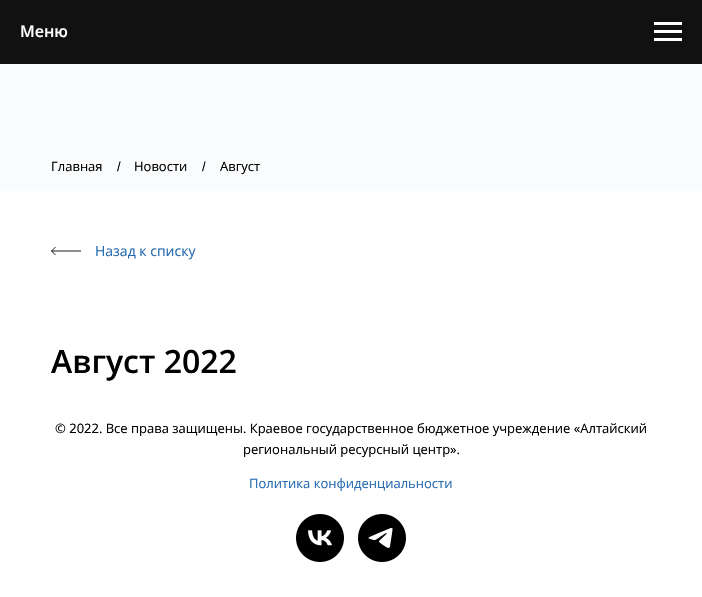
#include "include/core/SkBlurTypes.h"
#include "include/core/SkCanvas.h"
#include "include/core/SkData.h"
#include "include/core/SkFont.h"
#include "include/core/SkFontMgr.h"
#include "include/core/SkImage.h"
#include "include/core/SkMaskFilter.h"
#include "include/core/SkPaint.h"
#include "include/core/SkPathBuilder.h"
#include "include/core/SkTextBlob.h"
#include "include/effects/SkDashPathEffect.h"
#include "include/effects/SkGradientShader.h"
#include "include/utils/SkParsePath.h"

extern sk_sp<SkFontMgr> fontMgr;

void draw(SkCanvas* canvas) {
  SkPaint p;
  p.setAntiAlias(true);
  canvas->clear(SK_ColorWHITE);
  p.setColor(SkColorSetRGB(17, 17, 17));
  canvas->drawRect(SkRect::MakeLTRB(0, 0, 702, 64), p);
  p.setColor(SK_ColorWHITE);
  canvas->drawRect(SkRect::MakeLTRB(654, 22, 682, 25), p);
  canvas->drawRect(SkRect::MakeLTRB(654, 30, 682, 33), p);
  canvas->drawRect(SkRect::MakeLTRB(654, 38, 682, 41), p);
  p.setColor(SkColorSetRGB(250, 251, 253));
  canvas->drawRect(SkRect::MakeLTRB(0, 64, 702, 191), p);
  p.setStyle(SkPaint::kStroke_Style);
  p.setStrokeWidth(0.9f);
  p.setColor(SK_ColorBLACK);
  canvas->drawPath(SkPathBuilder().moveTo(81, 251).lineTo(51.5f, 251).detach(), p);
  p.setStrokeJoin(SkPaint::kBevel_Join);
  canvas->drawPath(SkPathBuilder().moveTo(55.5f, 247).lineTo(51.5f, 251).lineTo(55.5f, 255).detach(), p);
  canvas->drawImageRect(SkImages::DeferredFromEncodedData(SkData::MakeFromFileName("images/1.png")), SkRect::MakeLTRB(296, 514, 344, 562), SkSamplingOptions());
  canvas->drawImageRect(SkImages::DeferredFromEncodedData(SkData::MakeFromFileName("images/2.png")), SkRect::MakeLTRB(358, 514, 406, 562), SkSamplingOptions());
  SkFont font1(fontMgr->matchFamilyStyle("Open Sans", SkFontStyle(600, SkFontStyle::kNormal_Width, SkFontStyle::kUpright_Slant)), 16);
  font1.setSubpixel(true);
  p.setStyle(SkPaint::kFill_Style);
  p.setColor(SK_ColorWHITE);
  canvas->drawString("Меню", 20, 37, font1, p);
  SkFont font2(fontMgr->matchFamilyStyle("Open Sans", SkFontStyle::Normal()), 13);
  font2.setSubpixel(true);
  p.setColor(SK_ColorBLACK);
  canvas->drawString("Главная", 51, 171, font2, p);
  SkFont font3(fontMgr->matchFamilyStyle("Liberation Sans", SkFontStyle::Normal()), 13);
  font3.setSubpixel(true);
  canvas->drawString("/", 117, 171, font3, p);
  canvas->drawString("Новости", 134, 171, font2, p);
  canvas->drawString("/", 202, 171, font3, p);
  canvas->drawString("Август", 220, 171, font2, p);
  SkFont font4(fontMgr->matchFamilyStyle("Open Sans", SkFontStyle::Normal()), 14);
  font4.setSubpixel(true);
  p.setColor(SkColorSetRGB(35, 105, 176));
  canvas->drawString("Назад к списку", 95, 256, font4, p);
  SkFont font5(fontMgr->matchFamilyStyle("Open Sans", SkFontStyle(600, SkFontStyle::kNormal_Width, SkFontStyle::kUpright_Slant)), 32);
  font5.setSubpixel(true);
  p.setColor(SK_ColorBLACK);
  canvas->drawString("Август 2022", 51, 373, font5, p);
  canvas->drawString("© 2022. Все права защищены. Краевое государственное бюджетное учреждение «Алтайский", 55, 433, font2, p);
  canvas->drawString("региональный ресурсный центр».", 243, 454, font2, p);
  p.setColor(SkColorSetRGB(35, 105, 176));
  canvas->drawString("Политика конфиденциальности", 249, 488, font2, p);
}
